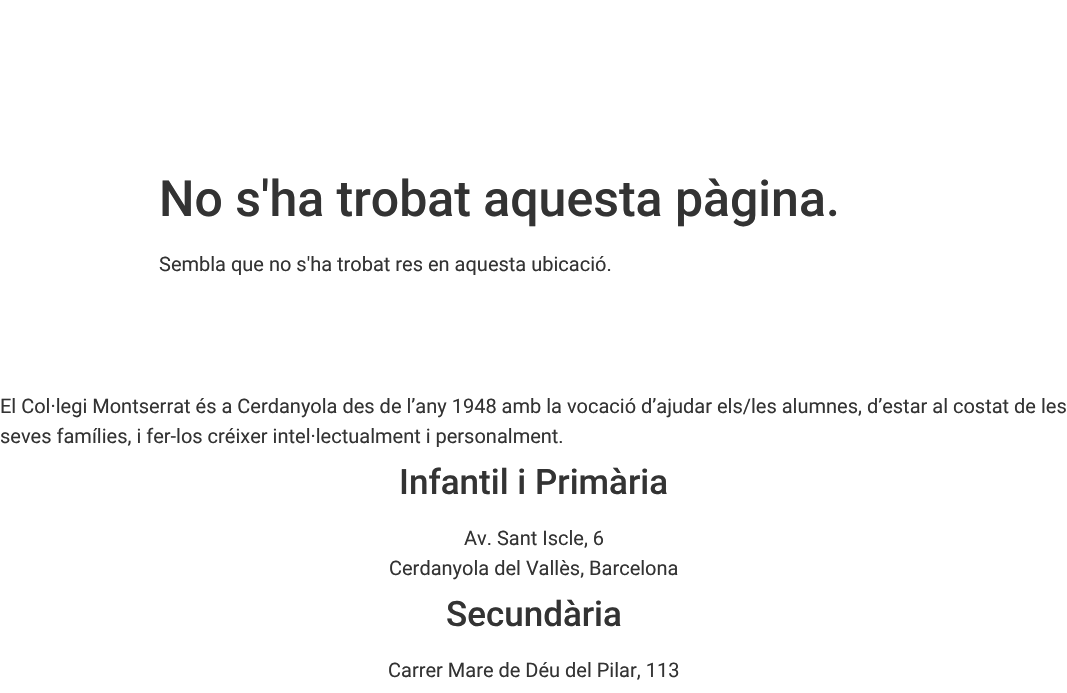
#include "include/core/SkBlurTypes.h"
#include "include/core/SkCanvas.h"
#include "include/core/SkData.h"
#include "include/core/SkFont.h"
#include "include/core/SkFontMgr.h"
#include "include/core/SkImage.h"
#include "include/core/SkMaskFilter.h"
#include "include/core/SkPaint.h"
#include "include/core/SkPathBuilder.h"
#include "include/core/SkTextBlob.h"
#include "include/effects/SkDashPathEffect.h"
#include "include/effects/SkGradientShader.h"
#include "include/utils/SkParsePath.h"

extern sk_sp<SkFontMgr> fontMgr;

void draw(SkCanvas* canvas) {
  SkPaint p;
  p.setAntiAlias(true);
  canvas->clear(SK_ColorWHITE);
  SkFont font1(fontMgr->matchFamilyStyle("Roboto", SkFontStyle(500, SkFontStyle::kNormal_Width, SkFontStyle::kUpright_Slant)), 50);
  font1.setSubpixel(true);
  p.setColor(SkColorSetRGB(51, 51, 51));
  canvas->drawString("No s'ha trobat aquesta pàgina.", 159, 216, font1, p);
  SkFont font2(fontMgr->matchFamilyStyle("Roboto", SkFontStyle::Normal()), 20);
  font2.setSubpixel(true);
  canvas->drawString("Sembla que no s'ha trobat res en aquesta ubicació.", 159, 271, font2, p);
  canvas->drawString("El Col·legi Montserrat és a Cerdanyola des de l’any 1948 amb la vocació d’ajudar els/les alumnes, d’estar al costat de les", 0, 413, font2, p);
  canvas->drawString("seves famílies, i fer-los créixer intel·lectualment i personalment.", 0, 443, font2, p);
  SkFont font3(fontMgr->matchFamilyStyle("Roboto", SkFontStyle(500, SkFontStyle::kNormal_Width, SkFontStyle::kUpright_Slant)), 35);
  font3.setSubpixel(true);
  canvas->drawString("Infantil i Primària", 399, 494, font3, p);
  canvas->drawString("Av. Sant Iscle, 6", 464, 545, font2, p);
  canvas->drawString("Cerdanyola del Vallès, Barcelona", 389, 575, font2, p);
  canvas->drawString("Secundària", 446, 626, font3, p);
  canvas->drawString("Carrer Mare de Déu del Pilar, 113", 388, 677, font2, p);
}
